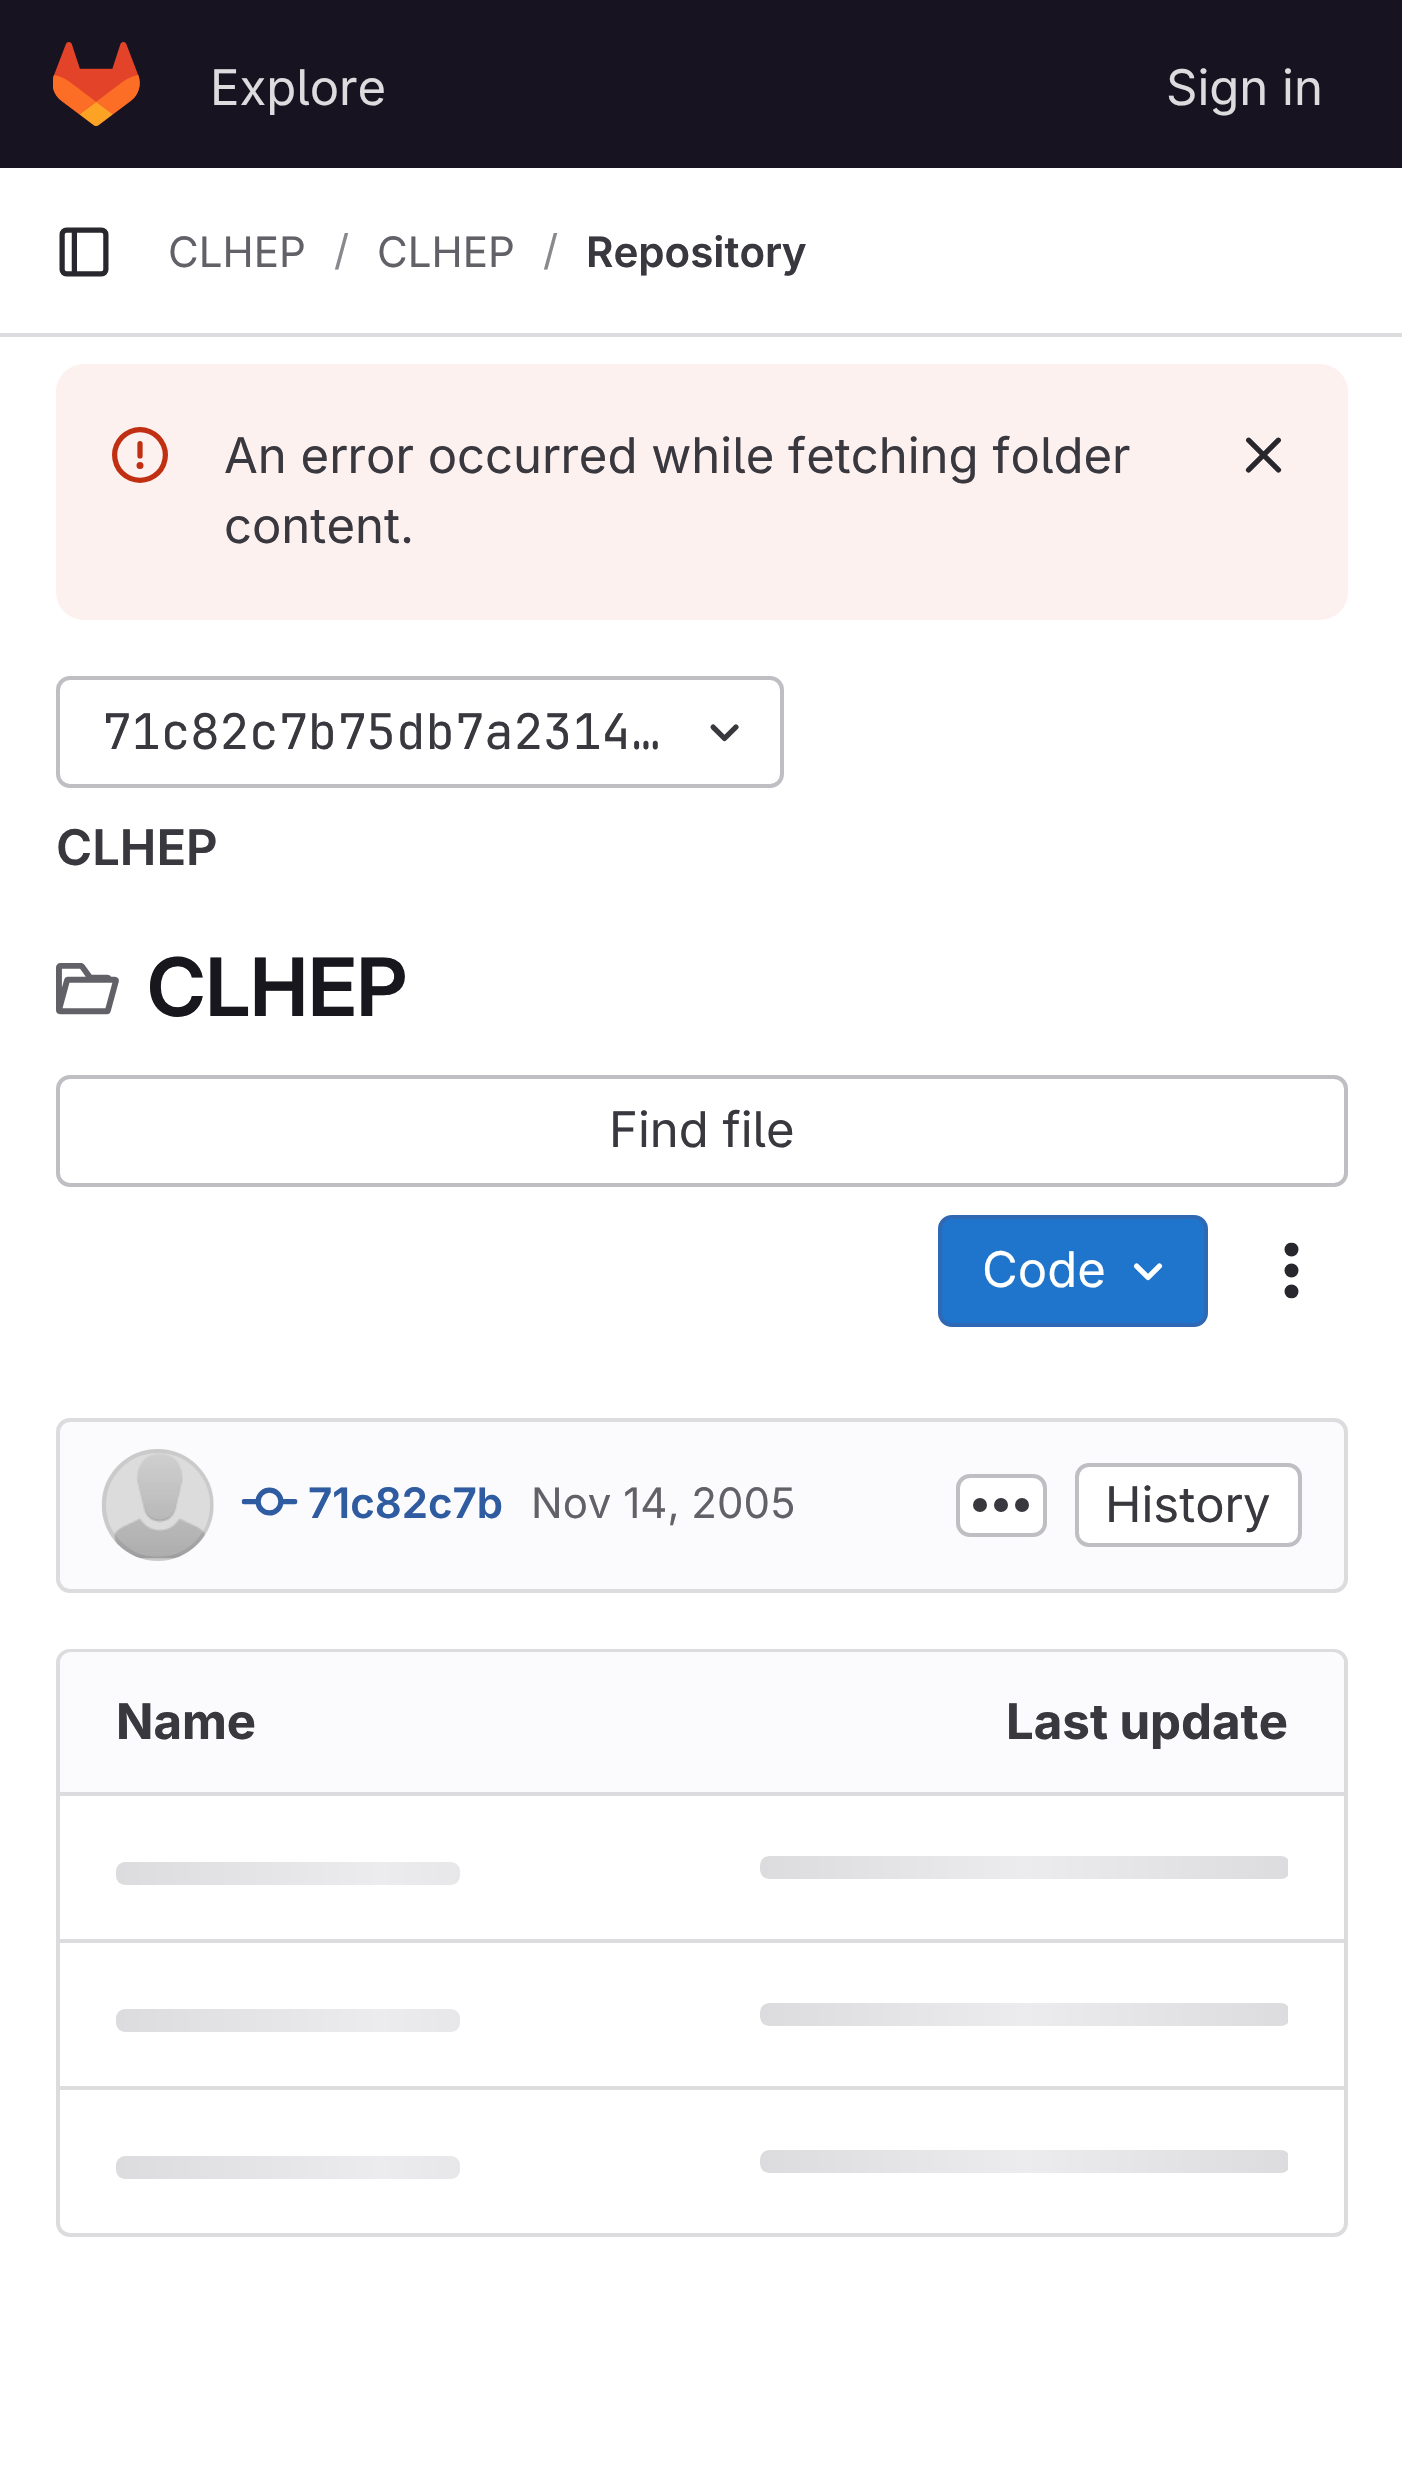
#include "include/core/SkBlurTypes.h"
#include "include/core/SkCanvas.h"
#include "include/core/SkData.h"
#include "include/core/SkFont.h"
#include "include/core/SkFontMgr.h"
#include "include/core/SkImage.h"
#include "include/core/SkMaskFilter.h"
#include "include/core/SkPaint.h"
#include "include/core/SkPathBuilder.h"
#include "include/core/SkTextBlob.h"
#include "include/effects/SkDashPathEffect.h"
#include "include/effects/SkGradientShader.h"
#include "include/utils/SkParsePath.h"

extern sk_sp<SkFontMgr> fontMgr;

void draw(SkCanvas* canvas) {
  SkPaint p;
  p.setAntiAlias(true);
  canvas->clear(SK_ColorWHITE);
  p.setColor(SkColorSetRGB(23, 19, 33));
  canvas->drawRect(SkRect::MakeLTRB(0, 0, 1402, 168), p);
  canvas->drawImageRect(SkImages::DeferredFromEncodedData(SkData::MakeFromFileName("images/1.png")), SkRect::MakeLTRB(53, 42, 140, 126), SkSamplingOptions());
  p.setColor(SkColorSetRGB(220, 220, 222));
  canvas->drawRect(SkRect::MakeLTRB(0, 333, 1402, 337), p);
  canvas->drawImageRect(SkImages::DeferredFromEncodedData(SkData::MakeFromFileName("images/2.png")), SkRect::MakeLTRB(59, 227, 109, 277), SkSamplingOptions());
  p.setColor(SkColorSetRGB(252, 241, 239));
  canvas->drawRoundRect(SkRect::MakeLTRB(56, 364, 1348, 620), 28, 28, p);
  canvas->drawImageRect(SkImages::DeferredFromEncodedData(SkData::MakeFromFileName("images/3.png")), SkRect::MakeLTRB(112, 427, 168, 483), SkSamplingOptions());
  canvas->drawImageRect(SkImages::DeferredFromEncodedData(SkData::MakeFromFileName("images/4.png")), SkRect::MakeLTRB(1245, 437, 1282, 473), SkSamplingOptions());
  p.setStyle(SkPaint::kStroke_Style);
  p.setStrokeWidth(4);
  p.setColor(SkColorSetRGB(191, 191, 195));
  canvas->drawRoundRect(SkRect::MakeLTRB(58, 678, 782, 786), 12, 12, p);
  canvas->drawImageRect(SkImages::DeferredFromEncodedData(SkData::MakeFromFileName("images/5.png")), SkRect::MakeLTRB(710, 724, 739, 742), SkSamplingOptions());
  canvas->drawImageRect(SkImages::DeferredFromEncodedData(SkData::MakeFromFileName("images/6.png")), SkRect::MakeLTRB(56, 963, 119, 1015), SkSamplingOptions());
  canvas->drawRoundRect(SkRect::MakeLTRB(58, 1077, 1346, 1185), 12, 12, p);
  p.setStyle(SkPaint::kFill_Style);
  p.setColor(SkColorSetRGB(31, 117, 203));
  canvas->drawRoundRect(SkRect::MakeLTRB(940, 1217, 1206, 1325), 12, 12, p);
  p.setStyle(SkPaint::kStroke_Style);
  p.setColor(SkColorSetRGB(47, 104, 180));
  canvas->drawRoundRect(SkRect::MakeLTRB(940, 1217, 1206, 1325), 12, 12, p);
  canvas->drawImageRect(SkImages::DeferredFromEncodedData(SkData::MakeFromFileName("images/7.png")), SkRect::MakeLTRB(1133, 1263, 1163, 1281), SkSamplingOptions());
  canvas->drawImageRect(SkImages::DeferredFromEncodedData(SkData::MakeFromFileName("images/8.png")), SkRect::MakeLTRB(1284, 1242, 1299, 1299), SkSamplingOptions());
  p.setStyle(SkPaint::kFill_Style);
  p.setColor(SkColorSetRGB(251, 250, 253));
  canvas->drawRoundRect(SkRect::MakeLTRB(58, 1420, 1346, 1591), 12, 12, p);
  p.setStyle(SkPaint::kStroke_Style);
  p.setColor(SkColorSetRGB(220, 220, 222));
  canvas->drawRoundRect(SkRect::MakeLTRB(58, 1420, 1346, 1591), 12, 12, p);
  canvas->drawImageRect(SkImages::DeferredFromEncodedData(SkData::MakeFromFileName("images/9.png")), SkRect::MakeLTRB(101, 1449, 214, 1561), SkSamplingOptions());
  p.setColor(SkColorSetARGB(20, 5, 5, 6));
  canvas->drawCircle(158, 1505, 54, p);
  canvas->drawImageRect(SkImages::DeferredFromEncodedData(SkData::MakeFromFileName("images/10.png")), SkRect::MakeLTRB(241, 1487, 298, 1516), SkSamplingOptions());
  p.setStyle(SkPaint::kFill_Style);
  p.setColor(SK_ColorWHITE);
  canvas->drawRoundRect(SkRect::MakeLTRB(958, 1476, 1045, 1535), 12, 12, p);
  p.setStyle(SkPaint::kStroke_Style);
  p.setColor(SkColorSetRGB(191, 191, 195));
  canvas->drawRoundRect(SkRect::MakeLTRB(958, 1476, 1045, 1535), 12, 12, p);
  canvas->drawImageRect(SkImages::DeferredFromEncodedData(SkData::MakeFromFileName("images/11.png")), SkRect::MakeLTRB(973, 1498, 1029, 1512), SkSamplingOptions());
  p.setStyle(SkPaint::kFill_Style);
  p.setColor(SK_ColorWHITE);
  canvas->drawRoundRect(SkRect::MakeLTRB(1077, 1465, 1300, 1545), 12, 12, p);
  p.setStyle(SkPaint::kStroke_Style);
  p.setColor(SkColorSetRGB(191, 191, 195));
  canvas->drawRoundRect(SkRect::MakeLTRB(1077, 1465, 1300, 1545), 12, 12, p);
  p.setColor(SkColorSetRGB(220, 220, 222));
  canvas->drawRoundRect(SkRect::MakeLTRB(58, 1651, 1346, 2235), 12, 12, p);
  p.setStyle(SkPaint::kFill_Style);
  p.setColor(SkColorSetRGB(251, 250, 253));
  canvas->drawPath(SkPathBuilder().moveTo(71, 1652).lineTo(704, 1652).lineTo(704, 1792).lineTo(60, 1792).lineTo(60, 1663).cubicTo(60, 1657, 65, 1652, 71, 1652).close().detach(), p);
  canvas->drawPath(SkPathBuilder().moveTo(704, 1652).lineTo(1333, 1652).cubicTo(1339, 1652, 1344, 1657, 1344, 1663).lineTo(1344, 1792).lineTo(704, 1792).close().detach(), p);
  p.setColor(SkColorSetRGB(220, 220, 222));
  canvas->drawRect(SkRect::MakeLTRB(60, 1939, 1344, 1943), p);
  canvas->drawRect(SkRect::MakeLTRB(60, 1792, 1344, 1796), p);
  canvas->save();
  canvas->clipPath(SkPathBuilder().moveTo(769, 1856).lineTo(1281, 1856).cubicTo(1286, 1856, 1290, 1860, 1290, 1865).lineTo(1290, 1870).cubicTo(1290, 1875, 1286, 1879, 1281, 1879).lineTo(769, 1879).cubicTo(764, 1879, 760, 1875, 760, 1870).lineTo(760, 1865).cubicTo(760, 1860, 764, 1856, 769, 1856).close().detach(), true);
  {
    const SkColor colors[] = {SkColorSetRGB(220, 220, 222), SkColorSetRGB(236, 236, 239), SkColorSetRGB(220, 220, 222)};
    const float stops[] = {0, 0.5f, 1};
    const SkPoint ends[] = {{760, 1856}, {1290, 1856}};
    p.setShader(SkGradientShader::MakeLinear(ends, colors, stops, 3, SkTileMode::kClamp));
    p.setAlpha(255);
  }
  canvas->drawPath(SkPathBuilder().moveTo(769, 1856).lineTo(1288, 1856).lineTo(1288, 1879).lineTo(769, 1879).cubicTo(764, 1879, 760, 1875, 760, 1870).lineTo(760, 1865).cubicTo(760, 1860, 764, 1856, 769, 1856).close().detach(), p);
  canvas->restore();
  {
    const SkColor colors[] = {SkColorSetRGB(220, 220, 222), SkColorSetRGB(236, 236, 239), SkColorSetRGB(220, 220, 222)};
    const float stops[] = {0, 0.5f, 1};
    const SkPoint ends[] = {{116, 1862}, {645, 1862}};
    p.setShader(SkGradientShader::MakeLinear(ends, colors, stops, 3, SkTileMode::kClamp));
    p.setAlpha(255);
  }
  canvas->drawRoundRect(SkRect::MakeLTRB(116, 1862, 460, 1885), 9, 9, p);
  p.setShader(nullptr);
  p.setColor(SkColorSetRGB(220, 220, 222));
  canvas->drawRect(SkRect::MakeLTRB(60, 2086, 1344, 2090), p);
  {
    const SkColor colors[] = {SkColorSetRGB(220, 220, 222), SkColorSetRGB(236, 236, 239), SkColorSetRGB(220, 220, 222)};
    const float stops[] = {0, 0.5f, 1};
    const SkPoint ends[] = {{116, 2009}, {645, 2009}};
    p.setShader(SkGradientShader::MakeLinear(ends, colors, stops, 3, SkTileMode::kClamp));
    p.setAlpha(255);
  }
  canvas->drawRoundRect(SkRect::MakeLTRB(116, 2009, 460, 2032), 9, 9, p);
  canvas->save();
  canvas->clipPath(SkPathBuilder().moveTo(769, 2003).lineTo(1281, 2003).cubicTo(1286, 2003, 1290, 2007, 1290, 2012).lineTo(1290, 2017).cubicTo(1290, 2022, 1286, 2026, 1281, 2026).lineTo(769, 2026).cubicTo(764, 2026, 760, 2022, 760, 2017).lineTo(760, 2012).cubicTo(760, 2007, 764, 2003, 769, 2003).close().detach(), true);
  {
    const SkColor colors[] = {SkColorSetRGB(220, 220, 222), SkColorSetRGB(236, 236, 239), SkColorSetRGB(220, 220, 222)};
    const float stops[] = {0, 0.5f, 1};
    const SkPoint ends[] = {{760, 2003}, {1290, 2003}};
    p.setShader(SkGradientShader::MakeLinear(ends, colors, stops, 3, SkTileMode::kClamp));
    p.setAlpha(255);
  }
  canvas->drawPath(SkPathBuilder().moveTo(769, 2003).lineTo(1288, 2003).lineTo(1288, 2026).lineTo(769, 2026).cubicTo(764, 2026, 760, 2022, 760, 2017).lineTo(760, 2012).cubicTo(760, 2007, 764, 2003, 769, 2003).close().detach(), p);
  canvas->restore();
  {
    const SkColor colors[] = {SkColorSetRGB(220, 220, 222), SkColorSetRGB(236, 236, 239), SkColorSetRGB(220, 220, 222)};
    const float stops[] = {0, 0.5f, 1};
    const SkPoint ends[] = {{116, 2156}, {645, 2156}};
    p.setShader(SkGradientShader::MakeLinear(ends, colors, stops, 3, SkTileMode::kClamp));
    p.setAlpha(255);
  }
  canvas->drawRoundRect(SkRect::MakeLTRB(116, 2156, 460, 2179), 9, 9, p);
  canvas->save();
  canvas->clipPath(SkPathBuilder().moveTo(769, 2150).lineTo(1281, 2150).cubicTo(1286, 2150, 1290, 2154, 1290, 2159).lineTo(1290, 2164).cubicTo(1290, 2169, 1286, 2173, 1281, 2173).lineTo(769, 2173).cubicTo(764, 2173, 760, 2169, 760, 2164).lineTo(760, 2159).cubicTo(760, 2154, 764, 2150, 769, 2150).close().detach(), true);
  {
    const SkColor colors[] = {SkColorSetRGB(220, 220, 222), SkColorSetRGB(236, 236, 239), SkColorSetRGB(220, 220, 222)};
    const float stops[] = {0, 0.5f, 1};
    const SkPoint ends[] = {{760, 2150}, {1290, 2150}};
    p.setShader(SkGradientShader::MakeLinear(ends, colors, stops, 3, SkTileMode::kClamp));
    p.setAlpha(255);
  }
  canvas->drawPath(SkPathBuilder().moveTo(769, 2150).lineTo(1288, 2150).lineTo(1288, 2173).lineTo(769, 2173).cubicTo(764, 2173, 760, 2169, 760, 2164).lineTo(760, 2159).cubicTo(760, 2154, 764, 2150, 769, 2150).close().detach(), p);
  canvas->restore();
  SkFont font1(fontMgr->matchFamilyStyle("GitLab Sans", SkFontStyle::Normal()), 49);
  font1.setSubpixel(true);
  p.setShader(nullptr);
  p.setColor(SkColorSetRGB(220, 220, 222));
  canvas->drawString("Explore", 210, 105, font1, p);
  canvas->drawString("Sign in", 1166, 105, font1, p);
  SkFont font2(fontMgr->matchFamilyStyle("GitLab Sans", SkFontStyle::Normal()), 42);
  font2.setSubpixel(true);
  p.setColor(SkColorSetRGB(98, 97, 104));
  canvas->drawString("CLHEP", 168, 267, font2, p);
  p.setColor(SkColorSetRGB(137, 136, 141));
  canvas->drawString("/", 334, 265, font2, p);
  p.setColor(SkColorSetRGB(98, 97, 104));
  canvas->drawString("CLHEP", 377, 267, font2, p);
  p.setColor(SkColorSetRGB(137, 136, 141));
  canvas->drawString("/", 543, 265, font2, p);
  SkFont font3(fontMgr->matchFamilyStyle("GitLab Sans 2", SkFontStyle(600, SkFontStyle::kNormal_Width, SkFontStyle::kUpright_Slant)), 42);
  font3.setSubpixel(true);
  p.setColor(SkColorSetRGB(58, 56, 63));
  canvas->drawString("Repository", 586, 267, font3, p);
  canvas->drawString("An error occurred while fetching folder", 224, 473, font1, p);
  canvas->drawString("content.", 224, 543, font1, p);
  SkFont font4(fontMgr->matchFamilyStyle("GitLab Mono", SkFontStyle::Normal()), 49);
  font4.setSubpixel(true);
  canvas->drawString("71c82c7b75db7a2314…", 102, 749, font4, p);
  SkFont font5(fontMgr->matchFamilyStyle("GitLab Sans 2", SkFontStyle(600, SkFontStyle::kNormal_Width, SkFontStyle::kUpright_Slant)), 49);
  font5.setSubpixel(true);
  canvas->drawString("CLHEP", 56, 865, font5, p);
  SkFont font6(fontMgr->matchFamilyStyle("GitLab Sans", SkFontStyle(600, SkFontStyle::kNormal_Width, SkFontStyle::kUpright_Slant)), 80.5f);
  font6.setSubpixel(true);
  p.setColor(SkColorSetRGB(24, 23, 29));
  canvas->drawString("CLHEP", 147, 1016, font6, p);
  p.setColor(SkColorSetRGB(58, 56, 63));
  canvas->drawString("Find file", 609, 1147, font1, p);
  p.setColor(SK_ColorWHITE);
  canvas->drawString("Code", 982, 1287, font1, p);
  p.setColor(SkColorSetRGB(47, 92, 160));
  canvas->drawString("71c82c7b", 308, 1518, font3, p);
  p.setColor(SkColorSetRGB(98, 97, 104));
  canvas->drawString("Nov 14, 2005", 531, 1518, font2, p);
  p.setColor(SkColorSetRGB(58, 56, 63));
  canvas->drawString("History", 1105, 1522, font1, p);
  SkFont font7(fontMgr->matchFamilyStyle("GitLab Sans", SkFontStyle::Bold()), 49);
  font7.setSubpixel(true);
  canvas->drawString("Name", 116, 1739, font7, p);
  canvas->drawString("Last update", 1006, 1739, font7, p);
}
